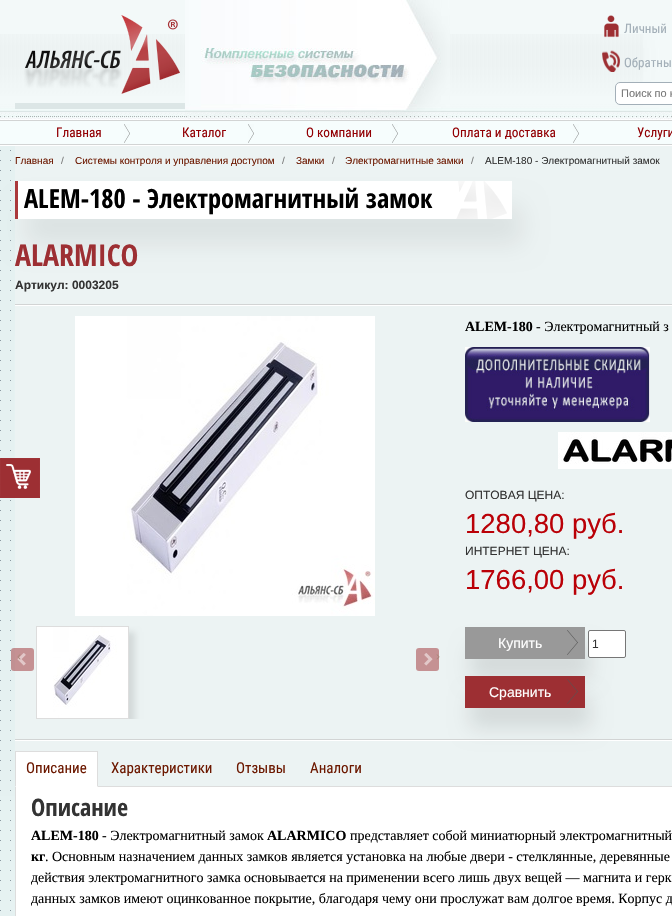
#include "include/core/SkBlurTypes.h"
#include "include/core/SkCanvas.h"
#include "include/core/SkData.h"
#include "include/core/SkFont.h"
#include "include/core/SkFontMgr.h"
#include "include/core/SkImage.h"
#include "include/core/SkMaskFilter.h"
#include "include/core/SkPaint.h"
#include "include/core/SkPathBuilder.h"
#include "include/core/SkTextBlob.h"
#include "include/effects/SkDashPathEffect.h"
#include "include/effects/SkGradientShader.h"
#include "include/utils/SkParsePath.h"

extern sk_sp<SkFontMgr> fontMgr;

void draw(SkCanvas* canvas) {
  SkPaint p;
  p.setAntiAlias(true);
  canvas->clear(SkColorSetRGB(229, 241, 241));
  canvas->drawImageRect(SkImages::DeferredFromEncodedData(SkData::MakeFromFileName("images/1.png")), SkRect::MakeLTRB(0, 146, 15, 911), SkSamplingOptions());
  p.setColor(SkColorSetRGB(243, 249, 249));
  canvas->drawRect(SkRect::MakeLTRB(0, 0, 672, 34), p);
  canvas->drawImageRect(SkImages::DeferredFromEncodedData(SkData::MakeFromFileName("images/2.png")), SkRect::MakeLTRB(0, 34, 672, 120), SkSamplingOptions());
  canvas->drawImageRect(SkImages::DeferredFromEncodedData(SkData::MakeFromFileName("images/3.png")), SkRect::MakeLTRB(15, 15, 185, 117), SkSamplingOptions());
  canvas->drawImageRect(SkImages::DeferredFromEncodedData(SkData::MakeFromFileName("images/4.png")), SkRect::MakeLTRB(185, 0, 450, 120), SkSamplingOptions());
  canvas->drawImageRect(SkImages::DeferredFromEncodedData(SkData::MakeFromFileName("images/5.png")), SkRect::MakeLTRB(643, 34, 672, 119), SkSamplingOptions());
  canvas->drawImageRect(SkImages::DeferredFromEncodedData(SkData::MakeFromFileName("images/6.png")), SkRect::MakeLTRB(604, 15, 619, 38), SkSamplingOptions());
  canvas->drawImageRect(SkImages::DeferredFromEncodedData(SkData::MakeFromFileName("images/7.png")), SkRect::MakeLTRB(602, 50, 620, 72), SkSamplingOptions());
  p.setColor(SK_ColorWHITE);
  canvas->drawRoundRect(SkRect::MakeLTRB(615.5f, 82.5f, 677.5f, 104.5f), 4.5f, 4.5f, p);
  p.setStyle(SkPaint::kStroke_Style);
  p.setStrokeWidth(1);
  p.setColor(SkColorSetRGB(163, 175, 184));
  canvas->drawRoundRect(SkRect::MakeLTRB(615.5f, 82.5f, 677.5f, 104.5f), 4.5f, 4.5f, p);
  canvas->drawImageRect(SkImages::DeferredFromEncodedData(SkData::MakeFromFileName("images/8.png")), SkRect::MakeLTRB(0, 120, 672, 146), SkSamplingOptions());
  canvas->drawImageRect(SkImages::DeferredFromEncodedData(SkData::MakeFromFileName("images/9.png")), SkRect::MakeLTRB(124, 124, 130, 143), SkSamplingOptions());
  canvas->drawImageRect(SkImages::DeferredFromEncodedData(SkData::MakeFromFileName("images/9.png")), SkRect::MakeLTRB(248, 124, 254, 143), SkSamplingOptions());
  canvas->drawImageRect(SkImages::DeferredFromEncodedData(SkData::MakeFromFileName("images/9.png")), SkRect::MakeLTRB(392, 124, 398, 143), SkSamplingOptions());
  canvas->drawImageRect(SkImages::DeferredFromEncodedData(SkData::MakeFromFileName("images/9.png")), SkRect::MakeLTRB(573, 124, 579, 143), SkSamplingOptions());
  p.setStyle(SkPaint::kFill_Style);
  p.setColor(SkColorSetRGB(236, 243, 243));
  canvas->drawRect(SkRect::MakeLTRB(15, 146, 672, 786), p);
  p.setColor(SkColorSetARGB(18, 0, 0, 0));
  p.setMaskFilter(SkMaskFilter::MakeBlur(kNormal_SkBlurStyle, 12.5f));
  canvas->drawRect(SkRect::MakeLTRB(25, 206, 522, 244), p);
  p.setMaskFilter(nullptr);
  p.setColor(SK_ColorWHITE);
  canvas->drawRect(SkRect::MakeLTRB(18, 181, 512, 219), p);
  canvas->drawImageRect(SkImages::DeferredFromEncodedData(SkData::MakeFromFileName("images/10.png")), SkRect::MakeLTRB(456, 181, 507, 219), SkSamplingOptions());
  p.setColor(SkColorSetRGB(170, 56, 59));
  canvas->drawRect(SkRect::MakeLTRB(15, 181, 18, 219), p);
  p.setColor(SkColorSetRGB(210, 212, 212));
  canvas->drawRect(SkRect::MakeLTRB(15, 304, 672, 305), p);
  p.setColor(SK_ColorWHITE);
  canvas->drawRect(SkRect::MakeLTRB(15, 305, 672, 306), p);
  canvas->drawImageRect(SkImages::DeferredFromEncodedData(SkData::MakeFromFileName("images/11.png")), SkRect::MakeLTRB(75, 316, 375, 616), SkSamplingOptions());
  p.setColor(SkColorSetARGB(128, 157, 47, 51));
  canvas->drawRoundRect(SkRect::MakeLTRB(11, 648, 34, 671), 3, 3, p);
  canvas->drawImageRect(SkImages::DeferredFromEncodedData(SkData::MakeFromFileName("images/12.png")), SkRect::MakeLTRB(17, 653, 26, 666), SkSamplingOptions());
  canvas->save();
  canvas->clipRect(SkRect::MakeLTRB(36, 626, 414, 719));
  p.setColor(SkColorSetARGB(26, 0, 0, 0));
  p.setMaskFilter(SkMaskFilter::MakeBlur(kNormal_SkBlurStyle, 3));
  canvas->drawRect(SkRect::MakeLTRB(42, 632, 135, 725), p);
  p.setMaskFilter(nullptr);
  canvas->restore();
  p.setStyle(SkPaint::kStroke_Style);
  p.setColor(SkColorSetRGB(221, 221, 221));
  canvas->drawRect(SkRect::MakeLTRB(36.5f, 626.5f, 128.5f, 718.5f), p);
  canvas->drawImageRect(SkImages::DeferredFromEncodedData(SkData::MakeFromFileName("images/13.png")), SkRect::MakeLTRB(37, 627, 128, 718), SkSamplingOptions());
  p.setStyle(SkPaint::kFill_Style);
  p.setColor(SkColorSetRGB(197, 145, 147));
  canvas->drawRoundRect(SkRect::MakeLTRB(416, 648, 439, 671), 3, 3, p);
  canvas->drawImageRect(SkImages::DeferredFromEncodedData(SkData::MakeFromFileName("images/14.png")), SkRect::MakeLTRB(424, 653, 433, 666), SkSamplingOptions());
  canvas->drawImageRect(SkImages::DeferredFromEncodedData(SkData::MakeFromFileName("images/15.png")), SkRect::MakeLTRB(465, 347, 650, 422), SkSamplingOptions());
  canvas->drawImageRect(SkImages::DeferredFromEncodedData(SkData::MakeFromFileName("images/16.png")), SkRect::MakeLTRB(558, 432, 672, 469), SkSamplingOptions());
  p.setColor(SkColorSetARGB(26, 0, 0, 0));
  p.setMaskFilter(SkMaskFilter::MakeBlur(kNormal_SkBlurStyle, 10));
  canvas->drawRect(SkRect::MakeLTRB(470, 647, 590, 679), p);
  p.setMaskFilter(nullptr);
  p.setColor(SkColorSetRGB(153, 153, 153));
  canvas->drawRect(SkRect::MakeLTRB(465, 627, 585, 659), p);
  canvas->drawImageRect(SkImages::DeferredFromEncodedData(SkData::MakeFromFileName("images/17.png")), SkRect::MakeLTRB(567, 630, 578, 655), SkSamplingOptions());
  p.setColor(SK_ColorWHITE);
  canvas->drawRoundRect(SkRect::MakeLTRB(588.5f, 630.5f, 625.5f, 657.5f), 1.5f, 1.5f, p);
  p.setStyle(SkPaint::kStroke_Style);
  p.setColor(SkColorSetRGB(118, 118, 118));
  canvas->drawRoundRect(SkRect::MakeLTRB(588.5f, 630.5f, 625.5f, 657.5f), 1.5f, 1.5f, p);
  p.setStyle(SkPaint::kFill_Style);
  p.setColor(SkColorSetARGB(26, 0, 0, 0));
  p.setMaskFilter(SkMaskFilter::MakeBlur(kNormal_SkBlurStyle, 10));
  canvas->drawRect(SkRect::MakeLTRB(470, 696, 590, 728), p);
  p.setMaskFilter(nullptr);
  p.setColor(SkColorSetRGB(157, 47, 51));
  canvas->drawRect(SkRect::MakeLTRB(465, 676, 585, 708), p);
  canvas->drawImageRect(SkImages::DeferredFromEncodedData(SkData::MakeFromFileName("images/18.png")), SkRect::MakeLTRB(567, 679, 578, 704), SkSamplingOptions());
  p.setColor(SkColorSetRGB(210, 212, 212));
  canvas->drawRect(SkRect::MakeLTRB(15, 739, 672, 740), p);
  p.setColor(SK_ColorWHITE);
  canvas->drawRect(SkRect::MakeLTRB(15, 740, 672, 741), p);
  p.setColor(SkColorSetRGB(221, 221, 221));
  canvas->drawRect(SkRect::MakeLTRB(98, 786, 672, 787), p);
  p.setColor(SK_ColorWHITE);
  canvas->drawRect(SkRect::MakeLTRB(15, 752, 98, 787), p);
  p.setColor(SkColorSetRGB(221, 221, 221));
  canvas->drawRect(SkRect::MakeLTRB(15, 751, 98, 752), p);
  canvas->drawPath(SkPathBuilder().moveTo(98, 751).lineTo(98, 787).lineTo(97, 786).lineTo(97, 752).close().detach(), p);
  canvas->drawPath(SkPathBuilder().moveTo(15, 787).lineTo(15, 751).lineTo(16, 752).lineTo(16, 786).close().detach(), p);
  p.setColor(SK_ColorWHITE);
  canvas->drawRect(SkRect::MakeLTRB(16, 787, 672, 916), p);
  p.setColor(SkColorSetRGB(221, 221, 221));
  canvas->drawRect(SkRect::MakeLTRB(15, 787, 16, 916), p);
  canvas->drawImageRect(SkImages::DeferredFromEncodedData(SkData::MakeFromFileName("images/19.png")), SkRect::MakeLTRB(0, 458, 40, 498), SkSamplingOptions());
  SkFont font1(fontMgr->matchFamilyStyle("Roboto Condensed", SkFontStyle::Normal()), 13);
  font1.setSubpixel(true);
  p.setColor(SkColorSetRGB(163, 175, 184));
  canvas->drawString("Личный", 624, 33, font1, p);
  canvas->drawString("Обратны", 624, 67, font1, p);
  SkFont font2(fontMgr->matchFamilyStyle("Liberation Sans", SkFontStyle::Normal()), 11);
  font2.setSubpixel(true);
  p.setColor(SkColorSetRGB(119, 119, 119));
  canvas->drawString("Поиск по к", 621, 97, font2, p);
  SkFont font3(fontMgr->matchFamilyStyle("Roboto Condensed", SkFontStyle::Normal()), 13.25f);
  font3.setSubpixel(true);
  p.setColor(SkColorSetRGB(146, 0, 4));
  canvas->drawString("Главная", 56, 137, font3, p);
  canvas->drawString("Каталог", 182, 137, font3, p);
  canvas->drawString("О компании", 306, 137, font3, p);
  canvas->drawString("Оплата и доставка", 452, 137, font3, p);
  canvas->drawString("Услуги", 637, 137, font3, p);
  SkFont font4(fontMgr->matchFamilyStyle("Liberation Sans", SkFontStyle::Normal()), 10);
  font4.setSubpixel(true);
  p.setColor(SkColorSetRGB(108, 24, 0));
  canvas->drawString("Главная", 15, 164, font4, p);
  p.setColor(SkColorSetRGB(119, 119, 119));
  canvas->drawString("/", 61, 164, font4, p);
  p.setColor(SkColorSetRGB(108, 24, 0));
  canvas->drawString("Системы контроля и управления доступом", 75, 164, font4, p);
  p.setColor(SkColorSetRGB(119, 119, 119));
  canvas->drawString("/", 282, 164, font4, p);
  p.setColor(SkColorSetRGB(108, 24, 0));
  canvas->drawString("Замки", 296, 164, font4, p);
  p.setColor(SkColorSetRGB(119, 119, 119));
  canvas->drawString("/", 332, 164, font4, p);
  p.setColor(SkColorSetRGB(108, 24, 0));
  canvas->drawString("Электромагнитные замки", 345, 164, font4, p);
  p.setColor(SkColorSetRGB(119, 119, 119));
  canvas->drawString("/", 471, 164, font4, p);
  p.setColor(SkColorSetRGB(51, 51, 51));
  canvas->drawString("ALEM-180 - Электромагнитный замок", 485, 164, font4, p);
  SkFont font5(fontMgr->matchFamilyStyle("Open Sans Condensed", SkFontStyle::Bold()), 26.4f);
  font5.setSubpixel(true);
  p.setColor(SK_ColorBLACK);
  canvas->drawString("ALEM-180 - Электромагнитный замок", 24, 208, font5, p);
  SkFont font6(fontMgr->matchFamilyStyle("Open Sans Condensed", SkFontStyle::Bold()), 30);
  font6.setSubpixel(true);
  p.setColor(SkColorSetRGB(157, 47, 51));
  canvas->drawString("ALARMICO", 15, 266, font6, p);
  SkFont font7(fontMgr->matchFamilyStyle("Liberation Sans", SkFontStyle::Bold()), 12);
  font7.setSubpixel(true);
  p.setColor(SkColorSetRGB(51, 51, 51));
  canvas->drawString("Артикул: 0003205", 15, 289, font7, p);
  SkFont font8(fontMgr->matchFamilyStyle("Liberation Sans", SkFontStyle::Normal()), 12);
  font8.setSubpixel(true);
  p.setColor(SkColorSetRGB(172, 134, 122));
  canvas->drawString("‹", 17, 660, font8, p);
  canvas->drawString("›", 436, 660, font8, p);
  SkFont font9(fontMgr->matchFamilyStyle("Liberation Serif", SkFontStyle::Bold()), 14);
  font9.setSubpixel(true);
  p.setColor(SK_ColorBLACK);
  canvas->drawString("ALEM-180", 465, 331, font9, p);
  SkFont font10(fontMgr->matchFamilyStyle("Liberation Serif", SkFontStyle::Normal()), 14);
  font10.setSubpixel(true);
  canvas->drawString("- Электромагнитный з", 536, 331, font10, p);
  p.setColor(SkColorSetRGB(51, 51, 51));
  canvas->drawString("ОПТОВАЯ ЦЕНА:", 465, 499, font8, p);
  SkFont font11(fontMgr->matchFamilyStyle("Liberation Sans", SkFontStyle::Normal()), 27.5f);
  font11.setSubpixel(true);
  p.setColor(SkColorSetRGB(186, 0, 7));
  canvas->drawString("1280,80 руб.", 465, 533, font11, p);
  p.setColor(SkColorSetRGB(51, 51, 51));
  canvas->drawString("ИНТЕРНЕТ ЦЕНА:", 465, 555, font8, p);
  p.setColor(SkColorSetRGB(186, 0, 7));
  canvas->drawString("1766,00 руб.", 465, 589, font11, p);
  SkFont font12(fontMgr->matchFamilyStyle("Liberation Sans", SkFontStyle::Normal()), 14);
  font12.setSubpixel(true);
  p.setColor(SK_ColorWHITE);
  canvas->drawString("Купить", 498, 648, font12, p);
  p.setColor(SkColorSetRGB(51, 51, 51));
  canvas->drawString("1", 592, 648, font8, p);
  p.setColor(SK_ColorWHITE);
  canvas->drawString("Сравнить", 489, 697, font12, p);
  SkFont font13(fontMgr->matchFamilyStyle("Roboto Condensed", SkFontStyle::Normal()), 15);
  font13.setSubpixel(true);
  p.setColor(SkColorSetRGB(108, 24, 0));
  canvas->drawString("Описание", 26, 773, font13, p);
  canvas->drawString("Характеристики", 111, 773, font13, p);
  canvas->drawString("Отзывы", 236, 773, font13, p);
  canvas->drawString("Аналоги", 310, 773, font13, p);
  SkFont font14(fontMgr->matchFamilyStyle("Open Sans Condensed", SkFontStyle::Bold()), 24);
  font14.setSubpixel(true);
  p.setColor(SkColorSetRGB(51, 51, 51));
  canvas->drawString("Описание", 31, 816, font14, p);
  p.setColor(SK_ColorBLACK);
  canvas->drawString("ALEM-180", 31, 840, font9, p);
  canvas->drawString("- Электромагнитный замок", 102, 840, font10, p);
  canvas->drawString("ALARMICO", 267, 840, font9, p);
  canvas->drawString("представляет собой миниатюрный электромагнитный", 350, 840, font10, p);
  canvas->drawString("кг", 31, 861, font9, p);
  canvas->drawString(". Основным назначением данных замков является установка на любые двери - стелклянные, деревянные", 45, 861, font10, p);
  canvas->drawString("действия электромагнитного замка основывается на применении всего лишь двух вещей — магнита и герк", 31, 882, font10, p);
  canvas->drawString("данных замков имеют оцинкованное покрытие, благодаря чему они прослужат вам долгое время. Корпус д", 31, 903, font10, p);
}
